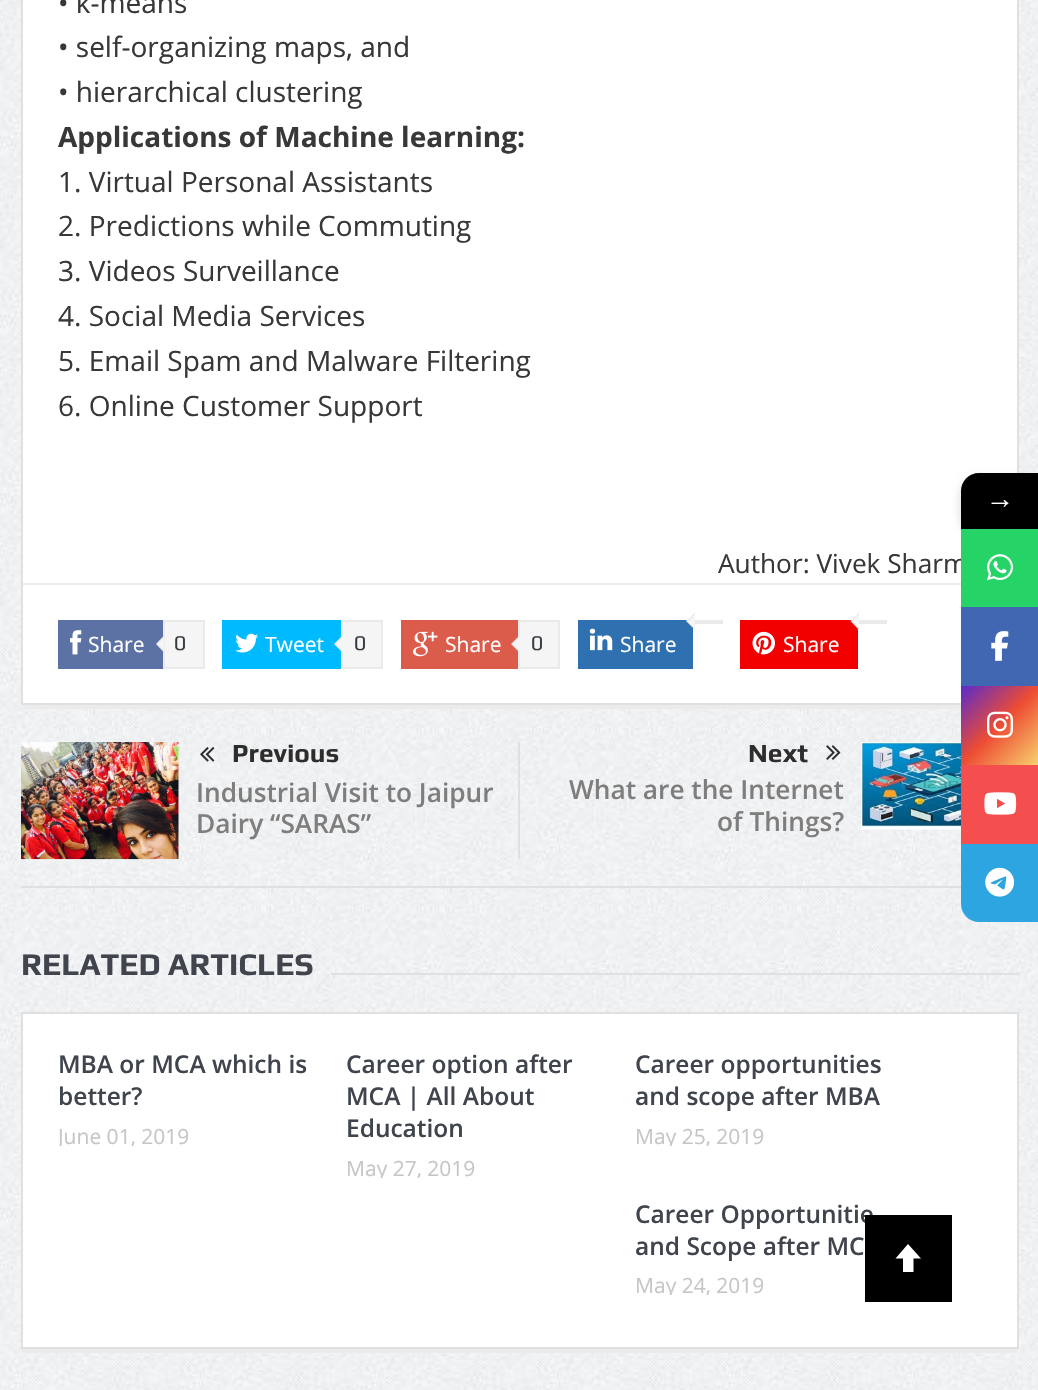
#include "include/core/SkBlurTypes.h"
#include "include/core/SkCanvas.h"
#include "include/core/SkData.h"
#include "include/core/SkFont.h"
#include "include/core/SkFontMgr.h"
#include "include/core/SkImage.h"
#include "include/core/SkMaskFilter.h"
#include "include/core/SkPaint.h"
#include "include/core/SkPathBuilder.h"
#include "include/core/SkTextBlob.h"
#include "include/effects/SkDashPathEffect.h"
#include "include/effects/SkGradientShader.h"
#include "include/utils/SkParsePath.h"

extern sk_sp<SkFontMgr> fontMgr;

void draw(SkCanvas* canvas) {
  SkPaint p;
  p.setAntiAlias(true);
  canvas->clear(SK_ColorWHITE);
  canvas->drawImageRect(SkImages::DeferredFromEncodedData(SkData::MakeFromFileName("images/1.png")), SkRect::MakeLTRB(0, 0, 1038, 1390), SkSamplingOptions());
  p.setColor(SK_ColorWHITE);
  canvas->drawRect(SkRect::MakeLTRB(22, -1, 1018, 704), p);
  p.setStyle(SkPaint::kStroke_Style);
  p.setStrokeWidth(2);
  p.setColor(SkColorSetRGB(224, 224, 224));
  canvas->drawRect(SkRect::MakeLTRB(22, -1, 1018, 704), p);
  p.setStyle(SkPaint::kFill_Style);
  p.setColor(SkColorSetRGB(234, 234, 234));
  canvas->drawRect(SkRect::MakeLTRB(23, 583, 961, 585), p);
  p.setColor(SkColorSetRGB(93, 114, 164));
  canvas->drawRect(SkRect::MakeLTRB(58, 620, 163, 669), p);
  canvas->drawImageRect(SkImages::DeferredFromEncodedData(SkData::MakeFromFileName("images/2.png")), SkRect::MakeLTRB(70, 630, 82, 655), SkSamplingOptions());
  p.setColor(SkColorSetRGB(245, 245, 245));
  canvas->drawRect(SkRect::MakeLTRB(164, 621, 204, 668), p);
  p.setStyle(SkPaint::kStroke_Style);
  p.setColor(SkColorSetRGB(234, 234, 234));
  canvas->drawRect(SkRect::MakeLTRB(164, 621, 204, 668), p);
  p.setStyle(SkPaint::kFill_Style);
  canvas->drawPath(SkPathBuilder().moveTo(164.5f, 635).lineTo(164.5f, 653).lineTo(156, 644).close().detach(), p);
  p.setColor(SkColorSetRGB(245, 245, 245));
  canvas->drawPath(SkPathBuilder().moveTo(164.5f, 637).lineTo(164.5f, 651).lineTo(157.5f, 644).close().detach(), p);
  p.setColor(SkColorSetRGB(0, 186, 255));
  canvas->drawRect(SkRect::MakeLTRB(222, 620, 341, 669), p);
  canvas->drawImageRect(SkImages::DeferredFromEncodedData(SkData::MakeFromFileName("images/3.png")), SkRect::MakeLTRB(235, 633, 259, 653), SkSamplingOptions());
  p.setColor(SkColorSetRGB(245, 245, 245));
  canvas->drawRect(SkRect::MakeLTRB(342, 621, 382, 668), p);
  p.setStyle(SkPaint::kStroke_Style);
  p.setColor(SkColorSetRGB(234, 234, 234));
  canvas->drawRect(SkRect::MakeLTRB(342, 621, 382, 668), p);
  p.setStyle(SkPaint::kFill_Style);
  canvas->drawPath(SkPathBuilder().moveTo(343, 635).lineTo(343, 653).lineTo(334, 644).close().detach(), p);
  p.setColor(SkColorSetRGB(245, 245, 245));
  canvas->drawPath(SkPathBuilder().moveTo(343, 637).lineTo(343, 651).lineTo(336, 644).close().detach(), p);
  p.setColor(SkColorSetRGB(219, 92, 75));
  canvas->drawRect(SkRect::MakeLTRB(401, 620, 518, 669), p);
  canvas->drawImageRect(SkImages::DeferredFromEncodedData(SkData::MakeFromFileName("images/4.png")), SkRect::MakeLTRB(413, 631, 438, 657), SkSamplingOptions());
  p.setColor(SkColorSetRGB(245, 245, 245));
  canvas->drawRect(SkRect::MakeLTRB(519, 621, 559, 668), p);
  p.setStyle(SkPaint::kStroke_Style);
  p.setColor(SkColorSetRGB(234, 234, 234));
  canvas->drawRect(SkRect::MakeLTRB(519, 621, 559, 668), p);
  p.setStyle(SkPaint::kFill_Style);
  canvas->drawPath(SkPathBuilder().moveTo(520, 635).lineTo(520, 653).lineTo(511, 644).close().detach(), p);
  p.setColor(SkColorSetRGB(245, 245, 245));
  canvas->drawPath(SkPathBuilder().moveTo(520, 637).lineTo(520, 651).lineTo(513, 644).close().detach(), p);
  p.setColor(SkColorSetRGB(234, 234, 234));
  canvas->drawRect(SkRect::MakeLTRB(693, 620, 723, 624), p);
  p.setColor(SkColorSetRGB(47, 112, 176));
  canvas->drawRect(SkRect::MakeLTRB(578, 620, 693, 669), p);
  p.setColor(SkColorSetRGB(234, 234, 234));
  canvas->drawPath(SkPathBuilder().moveTo(695, 612.5f).lineTo(695, 630).lineTo(686, 621).close().detach(), p);
  p.setColor(SkColorSetRGB(245, 245, 245));
  canvas->drawPath(SkPathBuilder().moveTo(695, 614).lineTo(695, 628).lineTo(688, 621).close().detach(), p);
  canvas->drawImageRect(SkImages::DeferredFromEncodedData(SkData::MakeFromFileName("images/5.png")), SkRect::MakeLTRB(589, 628, 613, 651), SkSamplingOptions());
  p.setColor(SkColorSetRGB(234, 234, 234));
  canvas->drawRect(SkRect::MakeLTRB(858, 620, 887, 624), p);
  p.setColor(SkColorSetRGB(242, 0, 0));
  canvas->drawRect(SkRect::MakeLTRB(740, 620, 858, 669), p);
  p.setColor(SkColorSetRGB(234, 234, 234));
  canvas->drawPath(SkPathBuilder().moveTo(859, 612.5f).lineTo(859, 630).lineTo(850.5f, 621).close().detach(), p);
  p.setColor(SkColorSetRGB(245, 245, 245));
  canvas->drawPath(SkPathBuilder().moveTo(859, 614).lineTo(859, 628).lineTo(852, 621).close().detach(), p);
  canvas->drawImageRect(SkImages::DeferredFromEncodedData(SkData::MakeFromFileName("images/6.png")), SkRect::MakeLTRB(752, 631, 775, 655), SkSamplingOptions());
  p.setColor(SkColorSetRGB(235, 235, 235));
  canvas->drawRect(SkRect::MakeLTRB(23, 705, 961, 709), p);
  p.setColor(SkColorSetRGB(224, 224, 224));
  canvas->drawRect(SkRect::MakeLTRB(21, 886, 961, 888), p);
  canvas->drawImageRect(SkImages::DeferredFromEncodedData(SkData::MakeFromFileName("images/7.png")), SkRect::MakeLTRB(21, 742, 179, 860), SkSamplingOptions());
  canvas->drawImageRect(SkImages::DeferredFromEncodedData(SkData::MakeFromFileName("images/8.png")), SkRect::MakeLTRB(200, 747, 215, 762), SkSamplingOptions());
  canvas->drawRect(SkRect::MakeLTRB(518, 742, 520, 859), p);
  canvas->drawImageRect(SkImages::DeferredFromEncodedData(SkData::MakeFromFileName("images/9.png")), SkRect::MakeLTRB(826, 745, 841, 760), SkSamplingOptions());
  canvas->drawImageRect(SkImages::DeferredFromEncodedData(SkData::MakeFromFileName("images/10.png")), SkRect::MakeLTRB(861, 742, 961, 830), SkSamplingOptions());
  canvas->drawRect(SkRect::MakeLTRB(331, 973, 1019, 975), p);
  p.setColor(SK_ColorWHITE);
  canvas->drawRect(SkRect::MakeLTRB(22, 1013, 1018, 1348), p);
  p.setStyle(SkPaint::kStroke_Style);
  p.setColor(SkColorSetRGB(224, 224, 224));
  canvas->drawRect(SkRect::MakeLTRB(22, 1013, 1018, 1348), p);
  p.setStyle(SkPaint::kFill_Style);
  p.setColor(SkColorSetRGB(235, 235, 235));
  canvas->drawRect(SkRect::MakeLTRB(23, 1349, 1017, 1353), p);
  p.setColor(SkColorSetARGB(41, 0, 0, 0));
  p.setMaskFilter(SkMaskFilter::MakeBlur(kNormal_SkBlurStyle, 5));
  canvas->drawRoundRect(SkRect::MakeLTRB(961, 478, 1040, 534), 18, 18, p);
  p.setMaskFilter(nullptr);
  p.setColor(SK_ColorBLACK);
  canvas->drawPath(SkPathBuilder().moveTo(979, 473).lineTo(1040, 473).lineTo(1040, 529).lineTo(961, 529).lineTo(961, 491).cubicTo(961, 481, 969, 473, 979, 473).close().detach(), p);
  p.setColor(SkColorSetRGB(66, 103, 178));
  canvas->drawRect(SkRect::MakeLTRB(961, 607, 1038, 686), p);
  canvas->drawImageRect(SkImages::DeferredFromEncodedData(SkData::MakeFromFileName("images/12.png")), SkRect::MakeLTRB(991, 631, 1009, 661), SkSamplingOptions());
  {
    const SkColor colors[] = {SkColorSetRGB(88, 43, 205), SkColorSetRGB(237, 76, 51), SkColorSetRGB(247, 211, 111)};
    const float stops[] = {0, 0.5f, 1};
    const SkPoint ends[] = {{961, 685}, {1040, 764}};
    p.setShader(SkGradientShader::MakeLinear(ends, colors, stops, 3, SkTileMode::kClamp));
    p.setAlpha(255);
  }
  canvas->drawRect(SkRect::MakeLTRB(961, 686, 1038, 765), p);
  canvas->drawImageRect(SkImages::DeferredFromEncodedData(SkData::MakeFromFileName("images/13.png")), SkRect::MakeLTRB(987, 711, 1014, 738), SkSamplingOptions());
  p.setShader(nullptr);
  p.setColor(SkColorSetRGB(245, 78, 78));
  canvas->drawRect(SkRect::MakeLTRB(961, 765, 1038, 844), p);
  canvas->drawImageRect(SkImages::DeferredFromEncodedData(SkData::MakeFromFileName("images/14.png")), SkRect::MakeLTRB(984, 792, 1017, 815), SkSamplingOptions());
  p.setColor(SkColorSetRGB(44, 165, 224));
  canvas->drawPath(SkPathBuilder().moveTo(961, 844).lineTo(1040, 844).lineTo(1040, 922).lineTo(979, 922).cubicTo(969, 922, 961, 914, 961, 904).close().detach(), p);
  canvas->drawImageRect(SkImages::DeferredFromEncodedData(SkData::MakeFromFileName("images/15.png")), SkRect::MakeLTRB(985, 867, 1015, 897), SkSamplingOptions());
  SkFont font1(fontMgr->matchFamilyStyle("Open Sans", SkFontStyle::Normal()), 28);
  font1.setSubpixel(true);
  p.setColor(SkColorSetRGB(56, 56, 56));
  canvas->drawString("• k-means", 58, 13, font1, p);
  canvas->drawString("• self-organizing maps, and", 58, 57, font1, p);
  canvas->drawString("• hierarchical clustering", 58, 102, font1, p);
  SkFont font2(fontMgr->matchFamilyStyle("Open Sans", SkFontStyle::Bold()), 28);
  font2.setSubpixel(true);
  canvas->drawString("Applications of Machine learning:", 58, 147, font2, p);
  canvas->drawString("1. Virtual Personal Assistants", 58, 192, font1, p);
  canvas->drawString("2. Predictions while Commuting", 58, 236, font1, p);
  canvas->drawString("3. Videos Surveillance", 58, 281, font1, p);
  canvas->drawString("4. Social Media Services", 58, 326, font1, p);
  canvas->drawString("5. Email Spam and Malware Filtering", 58, 371, font1, p);
  canvas->drawString("6. Online Customer Support", 58, 416, font1, p);
  SkFont font3(fontMgr->matchFamilyStyle("Open Sans", SkFontStyle::Normal()), 26.25f);
  font3.setSubpixel(true);
  canvas->drawString("Author: Vivek Sharm", 718, 573, font3, p);
  SkFont font4(fontMgr->matchFamilyStyle("Open Sans", SkFontStyle::Normal()), 21);
  font4.setSubpixel(true);
  p.setColor(SK_ColorWHITE);
  canvas->drawString("Share", 88, 652, font4, p);
  SkFont font5(fontMgr->matchFamilyStyle("Play", SkFontStyle::Normal()), 21);
  font5.setSubpixel(true);
  p.setColor(SkColorSetRGB(55, 60, 67));
  canvas->drawString("0", 174, 650, font5, p);
  p.setColor(SK_ColorWHITE);
  canvas->drawString("Tweet", 265, 652, font4, p);
  p.setColor(SkColorSetRGB(55, 60, 67));
  canvas->drawString("0", 354, 650, font5, p);
  p.setColor(SK_ColorWHITE);
  canvas->drawString("Share", 445, 652, font4, p);
  p.setColor(SkColorSetRGB(55, 60, 67));
  canvas->drawString("0", 531, 650, font5, p);
  p.setColor(SK_ColorWHITE);
  canvas->drawString("Share", 620, 652, font4, p);
  canvas->drawString("Share", 783, 652, font4, p);
  SkFont font6(fontMgr->matchFamilyStyle("Play", SkFontStyle::Bold()), 26.25f);
  font6.setSubpixel(true);
  p.setColor(SkColorSetRGB(45, 45, 45));
  canvas->drawString("Previous", 232, 762, font6, p);
  SkFont font7(fontMgr->matchFamilyStyle("Open Sans", SkFontStyle(600, SkFontStyle::kNormal_Width, SkFontStyle::kUpright_Slant)), 26.25f);
  font7.setSubpixel(true);
  p.setColor(SkColorSetRGB(126, 126, 126));
  canvas->drawString("Industrial Visit to Jaipur", 196, 802, font7, p);
  canvas->drawString("Dairy “SARAS”", 196, 833, font7, p);
  p.setColor(SkColorSetRGB(45, 45, 45));
  canvas->drawString("Next", 748, 762, font6, p);
  p.setColor(SkColorSetRGB(126, 126, 126));
  canvas->drawString("What are the Internet", 569, 799, font7, p);
  canvas->drawString("of Things?", 717, 831, font7, p);
  SkFont font8(fontMgr->matchFamilyStyle("Play", SkFontStyle::Bold()), 31.5f);
  font8.setSubpixel(true);
  p.setColor(SkColorSetRGB(64, 69, 77));
  canvas->drawString("RELATED ARTICLES", 21, 975, font8, p);
  SkFont font9(fontMgr->matchFamilyStyle("Open Sans", SkFontStyle(600, SkFontStyle::kNormal_Width, SkFontStyle::kUpright_Slant)), 24.5f);
  font9.setSubpixel(true);
  canvas->drawString("MBA or MCA which is", 58, 1073, font9, p);
  canvas->drawString("better?", 58, 1105, font9, p);
  canvas->save();
  canvas->clipRect(SkRect::MakeLTRB(58, 1125, 329, 1146));
  p.setColor(SkColorSetRGB(198, 198, 198));
  canvas->drawString("June 01, 2019", 58, 1144, font4, p);
  canvas->restore();
  p.setColor(SkColorSetRGB(64, 69, 77));
  canvas->drawString("Career option after", 346, 1073, font9, p);
  canvas->drawString("MCA | All About", 346, 1105, font9, p);
  canvas->drawString("Education", 346, 1137, font9, p);
  canvas->save();
  canvas->clipRect(SkRect::MakeLTRB(347, 1157, 618, 1178));
  p.setColor(SkColorSetRGB(198, 198, 198));
  canvas->drawString("May 27, 2019", 346, 1176, font4, p);
  canvas->restore();
  p.setColor(SkColorSetRGB(64, 69, 77));
  canvas->drawString("Career opportunities", 635, 1073, font9, p);
  canvas->drawString("and scope after MBA", 635, 1105, font9, p);
  canvas->save();
  canvas->clipRect(SkRect::MakeLTRB(635, 1125, 907, 1146));
  p.setColor(SkColorSetRGB(198, 198, 198));
  canvas->drawString("May 25, 2019", 635, 1144, font4, p);
  canvas->restore();
  p.setColor(SkColorSetRGB(64, 69, 77));
  canvas->drawString("Career Opportunitie", 635, 1223, font9, p);
  canvas->drawString("and Scope after MC", 635, 1255, font9, p);
  canvas->save();
  canvas->clipRect(SkRect::MakeLTRB(635, 1274, 907, 1295));
  p.setColor(SkColorSetRGB(198, 198, 198));
  canvas->drawString("May 24, 2019", 635, 1293, font4, p);
  canvas->restore();
  SkFont font10(fontMgr->matchFamilyStyle("Liberation Serif", SkFontStyle::Normal()), 28);
  font10.setSubpixel(true);
  p.setColor(SK_ColorWHITE);
  canvas->drawString("→", 986, 508, font10, p);
  p.setColor(SkColorSetRGB(38, 211, 103));
  canvas->drawRect(SkRect::MakeLTRB(961, 529, 1038, 607), p);
  canvas->drawImageRect(SkImages::DeferredFromEncodedData(SkData::MakeFromFileName("images/11.png")), SkRect::MakeLTRB(987, 554, 1013, 581), SkSamplingOptions());
  p.setColor(SK_ColorBLACK);
  canvas->drawRect(SkRect::MakeLTRB(865, 1215, 952, 1302), p);
  p.setColor(SK_ColorWHITE);
  canvas->drawPath(SkPathBuilder().moveTo(921, 1258.5f).lineTo(913.5f, 1258.5f).lineTo(913.5f, 1272).lineTo(903, 1272).lineTo(903, 1258.5f).lineTo(895.5f, 1258.5f).lineTo(908, 1244).close().detach(), p);
}
